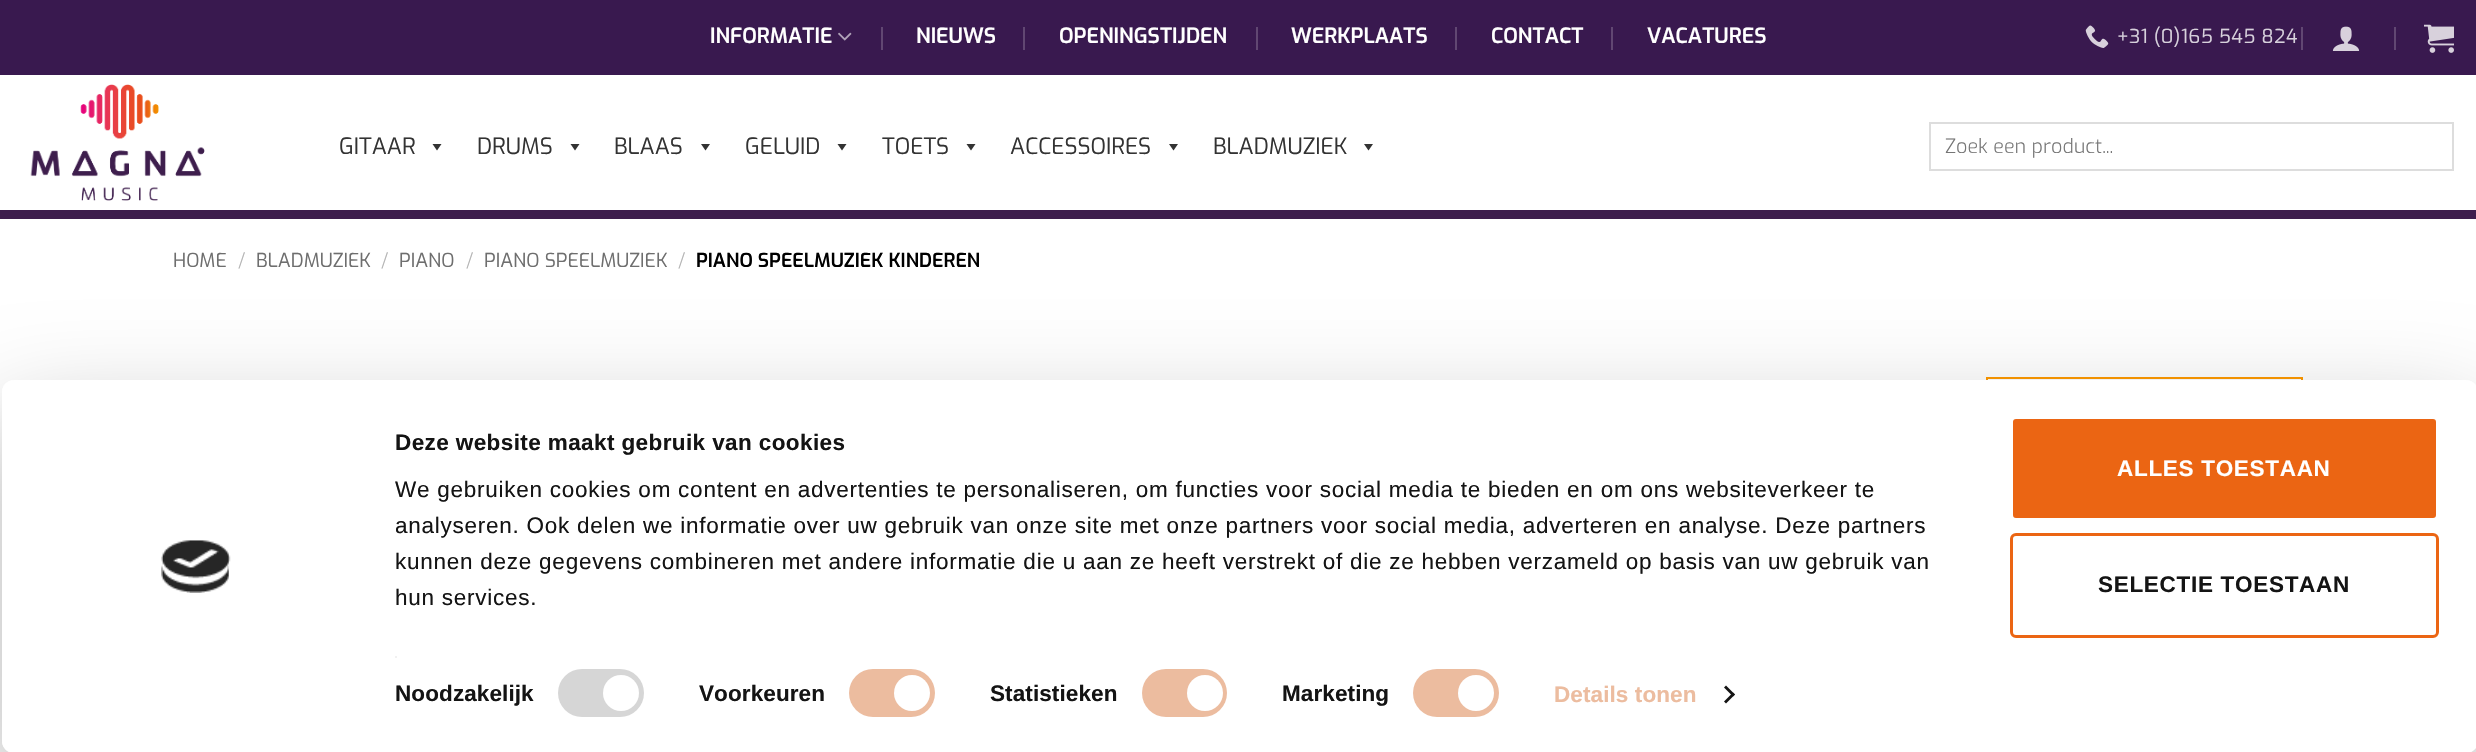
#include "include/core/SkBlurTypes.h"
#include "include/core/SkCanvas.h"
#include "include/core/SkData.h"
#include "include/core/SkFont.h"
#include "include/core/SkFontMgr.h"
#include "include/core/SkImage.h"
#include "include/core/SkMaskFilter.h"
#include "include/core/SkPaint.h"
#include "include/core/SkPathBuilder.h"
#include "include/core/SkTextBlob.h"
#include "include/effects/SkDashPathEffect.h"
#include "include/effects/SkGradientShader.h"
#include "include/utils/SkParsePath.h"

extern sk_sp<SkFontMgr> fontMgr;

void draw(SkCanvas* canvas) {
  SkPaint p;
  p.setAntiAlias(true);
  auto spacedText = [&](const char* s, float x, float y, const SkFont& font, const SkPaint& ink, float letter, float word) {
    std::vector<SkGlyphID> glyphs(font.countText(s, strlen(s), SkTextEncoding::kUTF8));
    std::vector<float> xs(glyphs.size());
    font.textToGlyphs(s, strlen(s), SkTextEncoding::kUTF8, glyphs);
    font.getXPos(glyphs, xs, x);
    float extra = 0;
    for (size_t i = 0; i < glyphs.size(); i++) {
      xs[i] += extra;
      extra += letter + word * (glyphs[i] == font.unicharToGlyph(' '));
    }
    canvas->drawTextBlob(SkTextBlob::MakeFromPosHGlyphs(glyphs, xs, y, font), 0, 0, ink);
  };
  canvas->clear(SK_ColorWHITE);
  p.setColor(SkColorSetRGB(62, 30, 77));
  canvas->drawRect(SkRect::MakeLTRB(0, 210, 2476, 219), p);
  p.setColor(SkColorSetRGB(57, 25, 79));
  canvas->drawRect(SkRect::MakeLTRB(0, 0, 2476, 75), p);
  canvas->drawImageRect(SkImages::DeferredFromEncodedData(SkData::MakeFromFileName("images/1.png")), SkRect::MakeLTRB(838, 32, 852, 41), SkSamplingOptions());
  p.setColor(SkColorSetRGB(97, 71, 114));
  canvas->drawRect(SkRect::MakeLTRB(881, 27, 883, 50), p);
  canvas->drawRect(SkRect::MakeLTRB(1023, 27, 1025, 50), p);
  canvas->drawRect(SkRect::MakeLTRB(1256, 27, 1258, 50), p);
  canvas->drawRect(SkRect::MakeLTRB(1455, 27, 1457, 50), p);
  canvas->drawRect(SkRect::MakeLTRB(1611, 27, 1613, 50), p);
  canvas->drawImageRect(SkImages::DeferredFromEncodedData(SkData::MakeFromFileName("images/2.png")), SkRect::MakeLTRB(2085, 25, 2109, 48), SkSamplingOptions());
  canvas->drawRect(SkRect::MakeLTRB(2301, 27, 2303, 50), p);
  canvas->drawImageRect(SkImages::DeferredFromEncodedData(SkData::MakeFromFileName("images/3.png")), SkRect::MakeLTRB(2332, 26, 2360, 51), SkSamplingOptions());
  canvas->drawRect(SkRect::MakeLTRB(2394, 27, 2396, 50), p);
  canvas->drawImageRect(SkImages::DeferredFromEncodedData(SkData::MakeFromFileName("images/4.png")), SkRect::MakeLTRB(2424, 24, 2454, 53), SkSamplingOptions());
  canvas->drawImageRect(SkImages::DeferredFromEncodedData(SkData::MakeFromFileName("images/5.png")), SkRect::MakeLTRB(30, 84, 205, 201), SkSamplingOptions());
  p.setColor(SkColorSetRGB(51, 51, 51));
  canvas->drawPath(SkPathBuilder().moveTo(441.5f, 144).lineTo(437, 150.5f).lineTo(432.5f, 144).close().detach(), p);
  canvas->drawPath(SkPathBuilder().moveTo(579.5f, 144).lineTo(575, 150.5f).lineTo(570.5f, 144).close().detach(), p);
  canvas->drawPath(SkPathBuilder().moveTo(710, 144).lineTo(705.5f, 150.5f).lineTo(701, 144).close().detach(), p);
  canvas->drawPath(SkPathBuilder().moveTo(846.5f, 144).lineTo(842, 150.5f).lineTo(837.5f, 144).close().detach(), p);
  canvas->drawPath(SkPathBuilder().moveTo(975.5f, 144).lineTo(971, 150.5f).lineTo(966.5f, 144).close().detach(), p);
  canvas->drawPath(SkPathBuilder().moveTo(1178, 144).lineTo(1173.5f, 150.5f).lineTo(1169, 144).close().detach(), p);
  canvas->drawPath(SkPathBuilder().moveTo(1373, 144).lineTo(1368.5f, 150.5f).lineTo(1364, 144).close().detach(), p);
  p.setStyle(SkPaint::kStroke_Style);
  p.setStrokeWidth(2);
  p.setColor(SkColorSetRGB(221, 221, 221));
  canvas->drawRect(SkRect::MakeLTRB(1930, 123, 2453, 170), p);
  p.setColor(SkColorSetRGB(255, 153, 0));
  canvas->drawRect(SkRect::MakeLTRB(1987, 378, 2302, 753), p);
  canvas->save();
  canvas->clipPath(SkPathBuilder(SkPathFillType::kEvenOdd).moveTo(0, 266).lineTo(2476, 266).lineTo(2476, 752).lineTo(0, 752).close().moveTo(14, 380).lineTo(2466, 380).cubicTo(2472.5f, 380, 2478, 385.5f, 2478, 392).lineTo(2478, 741).cubicTo(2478, 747.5f, 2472.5f, 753, 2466, 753).lineTo(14, 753).cubicTo(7.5f, 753, 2, 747.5f, 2, 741).lineTo(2, 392).cubicTo(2, 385.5f, 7.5f, 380, 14, 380).close().detach(), true);
  p.setStyle(SkPaint::kFill_Style);
  p.setColor(SkColorSetARGB(77, 0, 0, 0));
  p.setMaskFilter(SkMaskFilter::MakeBlur(kNormal_SkBlurStyle, 52.5f));
  canvas->drawRoundRect(SkRect::MakeLTRB(2, 425, 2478, 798), 12, 12, p);
  p.setMaskFilter(nullptr);
  canvas->restore();
  p.setColor(SK_ColorWHITE);
  canvas->drawRoundRect(SkRect::MakeLTRB(2, 380, 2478, 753), 12, 12, p);
  canvas->drawImageRect(SkImages::DeferredFromEncodedData(SkData::MakeFromFileName("images/6.png")), SkRect::MakeLTRB(161, 540, 231, 593), SkSamplingOptions());
  p.setColor(SkColorSetRGB(241, 241, 241));
  canvas->drawRect(SkRect::MakeLTRB(395, 656, 397, 658), p);
  p.setColor(SkColorSetRGB(214, 214, 214));
  canvas->drawRoundRect(SkRect::MakeLTRB(558, 669, 644, 717), 24, 24, p);
  p.setColor(SK_ColorWHITE);
  canvas->drawCircle(621, 693, 18, p);
  p.setColor(SkColorSetRGB(236, 188, 159));
  canvas->drawRoundRect(SkRect::MakeLTRB(849, 669, 935, 717), 24, 24, p);
  p.setColor(SK_ColorWHITE);
  canvas->drawCircle(912, 693, 18, p);
  p.setColor(SkColorSetRGB(236, 188, 159));
  canvas->drawRoundRect(SkRect::MakeLTRB(1142, 669, 1227, 717), 24, 24, p);
  p.setColor(SK_ColorWHITE);
  canvas->drawCircle(1205, 693, 18, p);
  p.setColor(SkColorSetRGB(236, 188, 159));
  canvas->drawRoundRect(SkRect::MakeLTRB(1413, 669, 1499, 717), 24, 24, p);
  p.setColor(SK_ColorWHITE);
  canvas->drawCircle(1476, 693, 18, p);
  p.setColor(SkColorSetRGB(20, 20, 20));
  canvas->drawPath(SkPathBuilder().moveTo(1726, 685.5f).lineTo(1735, 694.5f).lineTo(1733, 696.5f).lineTo(1724, 687.5f).close().detach(), p);
  canvas->drawPath(SkPathBuilder().moveTo(1733, 692.5f).lineTo(1735, 694.5f).lineTo(1726, 703.5f).lineTo(1724, 701.5f).close().detach(), p);
  p.setColor(SkColorSetRGB(235, 101, 19));
  canvas->drawRoundRect(SkRect::MakeLTRB(2011.5f, 417.5f, 2437.5f, 519.5f), 4.5f, 4.5f, p);
  p.setStyle(SkPaint::kStroke_Style);
  p.setStrokeWidth(3);
  p.setColor(SK_ColorWHITE);
  canvas->drawRoundRect(SkRect::MakeLTRB(2011.5f, 417.5f, 2437.5f, 519.5f), 4.5f, 4.5f, p);
  p.setColor(SkColorSetRGB(235, 101, 19));
  canvas->drawRoundRect(SkRect::MakeLTRB(2011.5f, 534.5f, 2437.5f, 636.5f), 4.5f, 4.5f, p);
  SkFont font1(fontMgr->matchFamilyStyle("Exo", SkFontStyle(600, SkFontStyle::kNormal_Width, SkFontStyle::kUpright_Slant)), 21);
  font1.setSubpixel(true);
  p.setStyle(SkPaint::kFill_Style);
  p.setColor(SK_ColorWHITE);
  canvas->drawString("INFORMATIE", 710, 43, font1, p);
  canvas->drawString("NIEUWS", 916, 43, font1, p);
  canvas->drawString("OPENINGSTIJDEN", 1059, 43, font1, p);
  canvas->drawString("WERKPLAATS", 1291, 43, font1, p);
  canvas->drawString("CONTACT", 1491, 43, font1, p);
  canvas->drawString("VACATURES", 1647, 43, font1, p);
  SkFont font2(fontMgr->matchFamilyStyle("Exo", SkFontStyle::Normal()), 19.25f);
  font2.setSubpixel(true);
  p.setColor(SkColorSetRGB(215, 209, 220));
  spacedText("+31 (0)165 545 824", 2117, 43, font2, p, 0.4f, 0);
  SkFont font3(fontMgr->matchFamilyStyle("Exo", SkFontStyle::Normal()), 22.5f);
  font3.setSubpixel(true);
  p.setColor(SkColorSetRGB(51, 51, 51));
  canvas->drawString("GITAAR", 339, 154, font3, p);
  canvas->drawString("DRUMS", 477, 154, font3, p);
  canvas->drawString("BLAAS", 614, 154, font3, p);
  canvas->drawString("GELUID", 745, 154, font3, p);
  canvas->drawString("TOETS", 882, 154, font3, p);
  canvas->drawString("ACCESSOIRES", 1010, 154, font3, p);
  canvas->drawString("BLADMUZIEK", 1213, 154, font3, p);
  SkFont font4(fontMgr->matchFamilyStyle("Exo", SkFontStyle(300, SkFontStyle::kNormal_Width, SkFontStyle::kUpright_Slant)), 19.75f);
  font4.setSubpixel(true);
  p.setColor(SkColorSetRGB(117, 117, 117));
  canvas->drawString("Zoek een product...", 1945, 153, font4, p);
  p.setColor(SkColorSetRGB(110, 110, 110));
  canvas->drawString("HOME", 173, 267, font2, p);
  SkFont font5(fontMgr->matchFamilyStyle("Exo", SkFontStyle(300, SkFontStyle::kNormal_Width, SkFontStyle::kUpright_Slant)), 19.25f);
  font5.setSubpixel(true);
  p.setColor(SkColorSetRGB(178, 178, 178));
  canvas->drawString("/", 238, 267, font5, p);
  p.setColor(SkColorSetRGB(110, 110, 110));
  canvas->drawString("BLADMUZIEK", 256, 267, font2, p);
  p.setColor(SkColorSetRGB(178, 178, 178));
  canvas->drawString("/", 381, 267, font5, p);
  p.setColor(SkColorSetRGB(110, 110, 110));
  canvas->drawString("PIANO", 399, 267, font2, p);
  p.setColor(SkColorSetRGB(178, 178, 178));
  canvas->drawString("/", 466, 267, font5, p);
  p.setColor(SkColorSetRGB(110, 110, 110));
  canvas->drawString("PIANO SPEELMUZIEK", 484, 267, font2, p);
  p.setColor(SkColorSetRGB(178, 178, 178));
  canvas->drawString("/", 678, 267, font5, p);
  SkFont font6(fontMgr->matchFamilyStyle("Exo", SkFontStyle(600, SkFontStyle::kNormal_Width, SkFontStyle::kUpright_Slant)), 19.25f);
  font6.setSubpixel(true);
  p.setColor(SK_ColorBLACK);
  canvas->drawString("PIANO SPEELMUZIEK KINDEREN", 696, 267, font6, p);
  SkFont font7(fontMgr->matchFamilyStyle("Liberation Sans", SkFontStyle::Bold()), 22.5f);
  font7.setSubpixel(true);
  p.setColor(SkColorSetRGB(20, 20, 20));
  spacedText("Deze website maakt gebruik van cookies", 395, 450, font7, p, 0.4f, 0);
  SkFont font8(fontMgr->matchFamilyStyle("Liberation Sans", SkFontStyle::Normal()), 22.5f);
  font8.setSubpixel(true);
  spacedText("We gebruiken cookies om content en advertenties te personaliseren, om functies voor social media te bieden en om ons websiteverkeer te", 395, 497, font8, p, 0.75f, 0);
  spacedText("analyseren. Ook delen we informatie over uw gebruik van onze site met onze partners voor social media, adverteren en analyse. Deze partners", 395, 533, font8, p, 0.75f, 0);
  spacedText("kunnen deze gegevens combineren met andere informatie die u aan ze heeft verstrekt of die ze hebben verzameld op basis van uw gebruik van", 395, 569, font8, p, 0.75f, 0);
  spacedText("hun services.", 395, 605, font8, p, 0.75f, 0);
  spacedText("Noodzakelijk", 395, 701, font7, p, 0.1f, 0);
  spacedText("Voorkeuren", 699, 701, font7, p, 0.1f, 0);
  spacedText("Statistieken", 990, 701, font7, p, 0.1f, 0);
  spacedText("Marketing", 1282, 701, font7, p, 0.1f, 0);
  p.setColor(SkColorSetRGB(236, 188, 159));
  spacedText("Details tonen", 1554, 702, font7, p, 0.1f, 0);
  p.setColor(SK_ColorWHITE);
  spacedText("ALLES TOESTAAN", 2117, 476, font7, p, 0.7f, 0);
  p.setColor(SkColorSetRGB(20, 20, 20));
  spacedText("SELECTIE TOESTAAN", 2098, 592, font7, p, 0.7f, 0);
}
